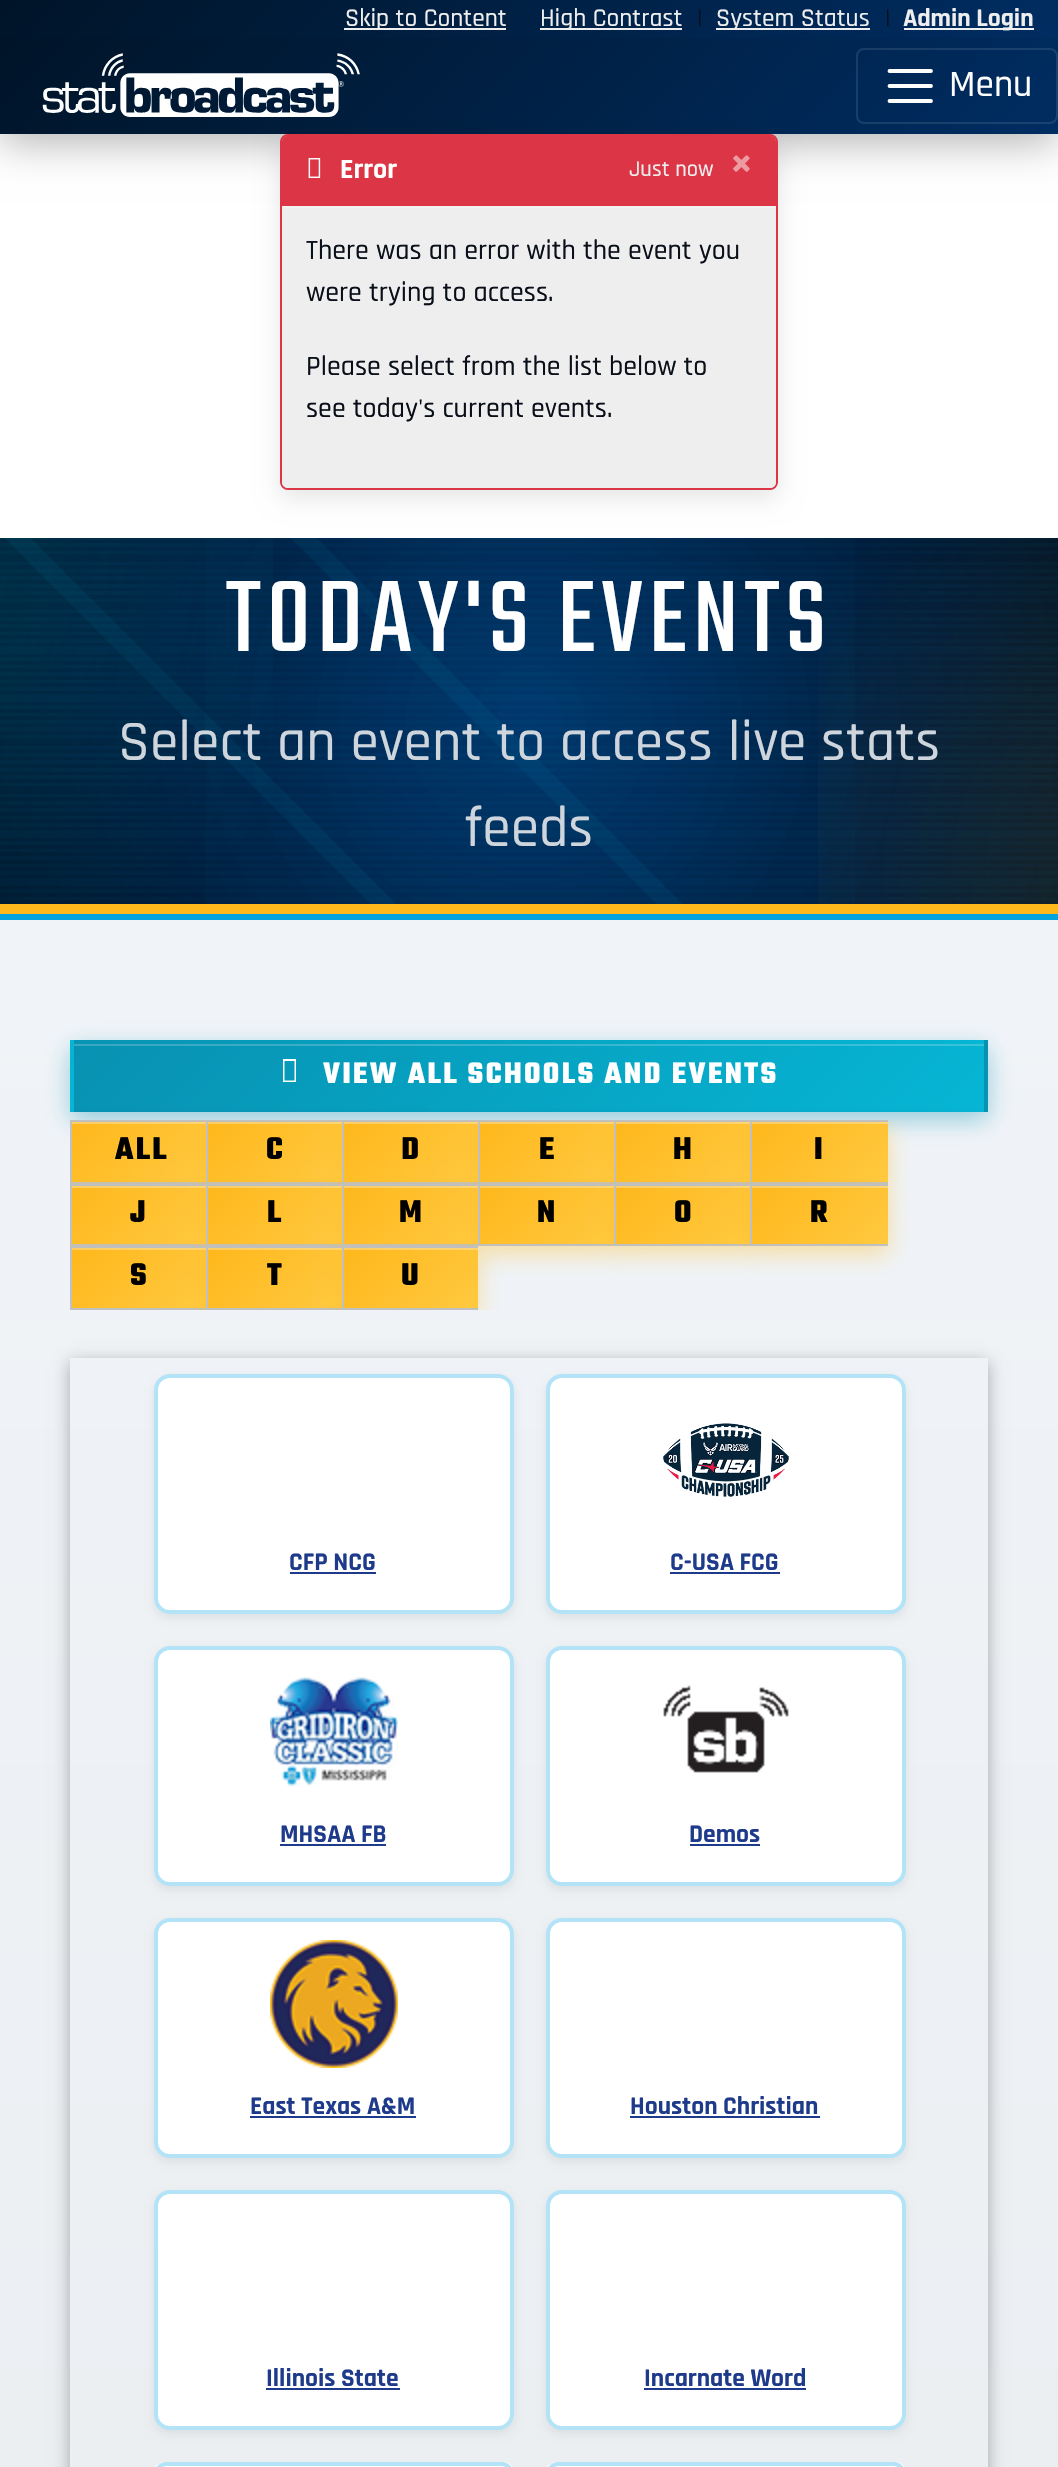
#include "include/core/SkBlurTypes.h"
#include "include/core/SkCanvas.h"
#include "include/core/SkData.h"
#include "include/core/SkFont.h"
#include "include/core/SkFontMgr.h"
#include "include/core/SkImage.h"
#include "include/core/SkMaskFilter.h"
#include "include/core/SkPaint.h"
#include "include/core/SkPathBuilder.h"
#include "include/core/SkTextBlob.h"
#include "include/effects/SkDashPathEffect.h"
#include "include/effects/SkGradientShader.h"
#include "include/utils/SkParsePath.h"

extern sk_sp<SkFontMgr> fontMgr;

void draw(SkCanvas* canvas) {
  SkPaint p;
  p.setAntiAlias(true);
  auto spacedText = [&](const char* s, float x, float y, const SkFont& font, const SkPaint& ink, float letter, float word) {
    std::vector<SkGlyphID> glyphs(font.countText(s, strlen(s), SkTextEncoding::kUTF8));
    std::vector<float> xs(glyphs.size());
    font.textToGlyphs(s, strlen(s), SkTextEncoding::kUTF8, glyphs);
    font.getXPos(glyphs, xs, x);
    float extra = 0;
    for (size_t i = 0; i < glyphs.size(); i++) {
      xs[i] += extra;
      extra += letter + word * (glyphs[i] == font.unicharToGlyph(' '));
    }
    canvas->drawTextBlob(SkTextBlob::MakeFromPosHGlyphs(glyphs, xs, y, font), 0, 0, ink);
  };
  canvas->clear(SK_ColorWHITE);
  p.setColor(SkColorSetARGB(77, 0, 0, 0));
  p.setMaskFilter(SkMaskFilter::MakeBlur(kNormal_SkBlurStyle, 20));
  canvas->drawRect(SkRect::MakeLTRB(0, 8, 1058, 142), p);
  p.setMaskFilter(nullptr);
  {
    const SkColor colors[] = {SkColorSetRGB(0, 20, 40), SkColorSetRGB(0, 45, 98)};
    const float stops[] = {0, 1};
    const SkPoint ends[] = {{255, -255}, {803, 293}};
    p.setShader(SkGradientShader::MakeLinear(ends, colors, stops, 2, SkTileMode::kClamp));
    p.setAlpha(255);
  }
  canvas->drawRect(SkRect::MakeLTRB(0, 0, 1058, 38), p);
  p.setShader(nullptr);
  p.setColor(SkColorSetRGB(238, 238, 238));
  canvas->drawRect(SkRect::MakeLTRB(344, 28, 506, 30), p);
  canvas->drawRect(SkRect::MakeLTRB(540, 28, 682, 30), p);
  canvas->drawRect(SkRect::MakeLTRB(716, 28, 870, 30), p);
  canvas->drawRect(SkRect::MakeLTRB(904, 28, 1034, 30), p);
  {
    const SkColor colors[] = {SkColorSetRGB(0, 20, 40), SkColorSetRGB(0, 45, 98)};
    const float stops[] = {0, 1};
    const SkPoint ends[] = {{241, -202}, {818, 375}};
    p.setShader(SkGradientShader::MakeLinear(ends, colors, stops, 2, SkTileMode::kClamp));
    p.setAlpha(255);
  }
  canvas->drawRect(SkRect::MakeLTRB(0, 38, 1058, 134), p);
  canvas->drawImageRect(SkImages::DeferredFromEncodedData(SkData::MakeFromFileName("images/1.png")), SkRect::MakeLTRB(42, 53, 360, 117), SkSamplingOptions());
  p.setStyle(SkPaint::kStroke_Style);
  p.setStrokeWidth(2);
  p.setShader(nullptr);
  p.setColor(SkColorSetARGB(26, 255, 255, 255));
  canvas->drawRoundRect(SkRect::MakeLTRB(857, 49, 1057, 123), 7, 7, p);
  p.setStrokeWidth(3.8f);
  p.setStrokeCap(SkPaint::kRound_Cap);
  p.setColor(SK_ColorWHITE);
  canvas->drawPath(SkPathBuilder().moveTo(889.5f, 71).lineTo(931, 71).moveTo(889.5f, 86).lineTo(931, 86).moveTo(889.5f, 101).lineTo(931, 101).detach(), p);
  p.setStyle(SkPaint::kFill_Style);
  p.setColor(SkColorSetARGB(26, 0, 0, 0));
  p.setMaskFilter(SkMaskFilter::MakeBlur(kNormal_SkBlurStyle, 12));
  canvas->drawRoundRect(SkRect::MakeLTRB(280, 142, 778, 498), 8, 8, p);
  p.setMaskFilter(nullptr);
  p.setStyle(SkPaint::kStroke_Style);
  p.setStrokeWidth(2);
  p.setStrokeCap(SkPaint::kButt_Cap);
  p.setColor(SkColorSetRGB(220, 53, 69));
  canvas->drawRoundRect(SkRect::MakeLTRB(281, 135, 777, 489), 7, 7, p);
  p.setStyle(SkPaint::kFill_Style);
  canvas->drawPath(SkPathBuilder().moveTo(288, 136).lineTo(770, 136).cubicTo(773.5f, 136, 776, 138.5f, 776, 142).lineTo(776, 206).lineTo(282, 206).lineTo(282, 142).cubicTo(282, 138.5f, 284.5f, 136, 288, 136).close().detach(), p);
  p.setColor(SkColorSetRGB(242, 242, 242));
  canvas->drawRect(SkRect::MakeLTRB(282, 206, 776, 208), p);
  canvas->drawImageRect(SkImages::DeferredFromEncodedData(SkData::MakeFromFileName("images/2.png")), SkRect::MakeLTRB(308, 158, 321, 178), SkSamplingOptions());
  p.setColor(SkColorSetRGB(238, 238, 238));
  canvas->drawPath(SkPathBuilder().moveTo(282, 208).lineTo(776, 208).lineTo(776, 482).cubicTo(776, 485.5f, 773.5f, 488, 770, 488).lineTo(288, 488).cubicTo(284.5f, 488, 282, 485.5f, 282, 482).close().detach(), p);
  {
    const SkColor colors[] = {SkColorSetRGB(0, 46, 99), SkColorSetRGB(0, 21, 42)};
    const float stops[] = {0, 1};
    p.setShader(SkGradientShader::MakeRadial({529, 721}, 560, colors, stops, 2, SkTileMode::kClamp));
    p.setAlpha(255);
  }
  canvas->drawRect(SkRect::MakeLTRB(0, 538, 1058, 904), p);
  {
    const SkColor colors[] = {SkColorSetARGB(0, 0, 0, 0), SkColorSetARGB(0, 0, 163, 224), SkColorSetARGB(8, 0, 163, 224), SkColorSetARGB(8, 0, 163, 224), SkColorSetARGB(0, 0, 163, 224), SkColorSetARGB(0, 0, 163, 224), SkColorSetARGB(8, 0, 163, 224), SkColorSetARGB(8, 0, 163, 224), SkColorSetARGB(0, 0, 163, 224), SkColorSetARGB(0, 0, 163, 224), SkColorSetARGB(8, 0, 163, 224), SkColorSetARGB(8, 0, 163, 224), SkColorSetARGB(0, 0, 163, 224), SkColorSetARGB(0, 0, 163, 224), SkColorSetARGB(8, 0, 163, 224), SkColorSetARGB(8, 0, 163, 224), SkColorSetARGB(0, 0, 163, 224), SkColorSetARGB(0, 0, 163, 224), SkColorSetARGB(8, 0, 163, 224), SkColorSetARGB(8, 0, 163, 224), SkColorSetARGB(0, 0, 163, 224), SkColorSetARGB(0, 0, 163, 224), SkColorSetARGB(8, 0, 163, 224), SkColorSetARGB(8, 0, 163, 224), SkColorSetARGB(0, 0, 163, 224), SkColorSetARGB(0, 0, 163, 224), SkColorSetARGB(8, 0, 163, 224), SkColorSetARGB(8, 0, 163, 224), SkColorSetARGB(0, 0, 163, 224), SkColorSetARGB(0, 0, 163, 224), SkColorSetARGB(8, 0, 163, 224), SkColorSetARGB(8, 0, 163, 224), SkColorSetARGB(0, 0, 163, 224), SkColorSetARGB(0, 0, 163, 224), SkColorSetARGB(8, 0, 163, 224), SkColorSetARGB(8, 0, 163, 224), SkColorSetARGB(0, 0, 163, 224), SkColorSetARGB(0, 0, 163, 224), SkColorSetARGB(8, 0, 163, 224), SkColorSetARGB(8, 0, 163, 224), SkColorSetARGB(0, 0, 163, 224), SkColorSetARGB(0, 0, 163, 224), SkColorSetARGB(8, 0, 163, 224), SkColorSetARGB(8, 0, 163, 224), SkColorSetARGB(0, 0, 163, 224), SkColorSetARGB(0, 0, 163, 224), SkColorSetARGB(8, 0, 163, 224), SkColorSetARGB(8, 0, 163, 224), SkColorSetARGB(0, 0, 163, 224), SkColorSetARGB(0, 0, 163, 224), SkColorSetARGB(8, 0, 163, 224), SkColorSetARGB(8, 0, 163, 224), SkColorSetARGB(0, 0, 163, 224), SkColorSetARGB(0, 0, 163, 224), SkColorSetARGB(8, 0, 163, 224), SkColorSetARGB(8, 0, 163, 224), SkColorSetARGB(0, 0, 163, 224), SkColorSetARGB(0, 0, 163, 224), SkColorSetARGB(8, 0, 163, 224), SkColorSetARGB(8, 0, 163, 224), SkColorSetARGB(0, 0, 163, 224), SkColorSetARGB(0, 0, 163, 224), SkColorSetARGB(8, 0, 163, 224), SkColorSetARGB(8, 0, 163, 224), SkColorSetARGB(0, 0, 163, 224), SkColorSetARGB(0, 0, 163, 224), SkColorSetARGB(8, 0, 163, 224), SkColorSetARGB(8, 0, 163, 224), SkColorSetARGB(0, 0, 163, 224), SkColorSetARGB(0, 0, 163, 224), SkColorSetARGB(8, 0, 163, 224), SkColorSetARGB(8, 0, 163, 224), SkColorSetARGB(0, 0, 163, 224), SkColorSetARGB(0, 0, 163, 224), SkColorSetARGB(8, 0, 163, 224), SkColorSetARGB(8, 0, 163, 224), SkColorSetARGB(0, 0, 163, 224), SkColorSetARGB(0, 0, 163, 224), SkColorSetARGB(8, 0, 163, 224), SkColorSetARGB(8, 0, 163, 224), SkColorSetARGB(0, 0, 163, 224), SkColorSetARGB(0, 0, 163, 224), SkColorSetARGB(8, 0, 163, 224), SkColorSetARGB(8, 0, 163, 224), SkColorSetARGB(0, 0, 163, 224), SkColorSetARGB(0, 0, 163, 224), SkColorSetARGB(8, 0, 163, 224), SkColorSetARGB(8, 0, 163, 224), SkColorSetARGB(0, 0, 163, 224), SkColorSetARGB(0, 0, 163, 224), SkColorSetARGB(8, 0, 163, 224), SkColorSetARGB(8, 0, 163, 224), SkColorSetARGB(0, 0, 163, 224), SkColorSetARGB(0, 0, 163, 224), SkColorSetARGB(8, 0, 163, 224), SkColorSetARGB(8, 0, 163, 224), SkColorSetARGB(0, 0, 163, 224), SkColorSetARGB(0, 0, 163, 224), SkColorSetARGB(8, 0, 163, 224), SkColorSetARGB(8, 0, 163, 224), SkColorSetARGB(0, 0, 163, 224), SkColorSetARGB(0, 0, 163, 224), SkColorSetARGB(8, 0, 163, 224), SkColorSetARGB(8, 0, 163, 224), SkColorSetARGB(0, 0, 163, 224), SkColorSetARGB(0, 0, 163, 224), SkColorSetARGB(8, 0, 163, 224), SkColorSetARGB(8, 0, 163, 224), SkColorSetARGB(0, 0, 163, 224), SkColorSetARGB(0, 0, 163, 224), SkColorSetARGB(8, 0, 163, 224), SkColorSetARGB(8, 0, 163, 224), SkColorSetARGB(0, 0, 163, 224), SkColorSetARGB(0, 0, 163, 224), SkColorSetARGB(8, 0, 163, 224), SkColorSetARGB(8, 0, 163, 224), SkColorSetARGB(0, 0, 163, 224), SkColorSetARGB(0, 0, 163, 224), SkColorSetARGB(8, 0, 163, 224), SkColorSetARGB(8, 0, 163, 224), SkColorSetARGB(0, 0, 163, 224), SkColorSetARGB(0, 0, 163, 224), SkColorSetARGB(8, 0, 163, 224), SkColorSetARGB(8, 0, 163, 224), SkColorSetARGB(0, 0, 163, 224), SkColorSetARGB(0, 0, 163, 224), SkColorSetARGB(8, 0, 163, 224), SkColorSetARGB(8, 0, 163, 224), SkColorSetARGB(0, 0, 163, 224), SkColorSetARGB(0, 0, 163, 224), SkColorSetARGB(8, 0, 163, 224), SkColorSetARGB(8, 0, 163, 224), SkColorSetARGB(0, 0, 163, 224), SkColorSetARGB(0, 0, 163, 224), SkColorSetARGB(8, 0, 163, 224), SkColorSetARGB(8, 0, 163, 224), SkColorSetARGB(0, 0, 163, 224), SkColorSetARGB(0, 0, 163, 224), SkColorSetARGB(8, 0, 163, 224), SkColorSetARGB(8, 0, 163, 224), SkColorSetARGB(0, 0, 163, 224), SkColorSetARGB(0, 0, 163, 224), SkColorSetARGB(8, 0, 163, 224), SkColorSetARGB(8, 0, 163, 224), SkColorSetARGB(0, 0, 163, 224), SkColorSetARGB(0, 0, 163, 224), SkColorSetARGB(8, 0, 163, 224), SkColorSetARGB(8, 0, 163, 224), SkColorSetARGB(0, 0, 163, 224), SkColorSetARGB(0, 0, 163, 224), SkColorSetARGB(8, 0, 163, 224), SkColorSetARGB(8, 0, 163, 224), SkColorSetARGB(0, 0, 163, 224), SkColorSetARGB(0, 0, 163, 224), SkColorSetARGB(8, 0, 163, 224), SkColorSetARGB(8, 0, 163, 224), SkColorSetARGB(0, 0, 163, 224), SkColorSetARGB(0, 0, 163, 224), SkColorSetARGB(8, 0, 163, 224), SkColorSetARGB(8, 0, 163, 224), SkColorSetARGB(0, 0, 163, 224), SkColorSetARGB(0, 0, 163, 224), SkColorSetARGB(8, 0, 163, 224), SkColorSetARGB(8, 0, 163, 224), SkColorSetARGB(0, 0, 163, 224), SkColorSetARGB(0, 0, 163, 224), SkColorSetARGB(8, 0, 163, 224), SkColorSetARGB(8, 0, 163, 224), SkColorSetARGB(0, 0, 163, 224), SkColorSetARGB(0, 0, 163, 224), SkColorSetARGB(8, 0, 163, 224), SkColorSetARGB(8, 0, 163, 224), SkColorSetARGB(0, 0, 163, 224), SkColorSetARGB(0, 0, 163, 224), SkColorSetARGB(8, 0, 163, 224), SkColorSetARGB(8, 0, 163, 224), SkColorSetARGB(0, 0, 163, 224), SkColorSetARGB(0, 0, 163, 224), SkColorSetARGB(8, 0, 163, 224), SkColorSetARGB(8, 0, 163, 224), SkColorSetARGB(0, 0, 163, 224), SkColorSetARGB(0, 0, 163, 224), SkColorSetARGB(8, 0, 163, 224), SkColorSetARGB(8, 0, 163, 224)};
    const float stops[] = {0, 0.01f, 0.01f, 0.02f, 0.02f, 0.03f, 0.03f, 0.04f, 0.04f, 0.05f, 0.05f, 0.07f, 0.07f, 0.08f, 0.08f, 0.09f, 0.09f, 0.1f, 0.1f, 0.11f, 0.11f, 0.12f, 0.12f, 0.13f, 0.13f, 0.14f, 0.14f, 0.15f, 0.15f, 0.16f, 0.16f, 0.17f, 0.17f, 0.18f, 0.18f, 0.2f, 0.2f, 0.21f, 0.21f, 0.22f, 0.22f, 0.23f, 0.23f, 0.24f, 0.24f, 0.25f, 0.25f, 0.26f, 0.26f, 0.27f, 0.27f, 0.28f, 0.28f, 0.29f, 0.29f, 0.3f, 0.3f, 0.32f, 0.32f, 0.33f, 0.33f, 0.34f, 0.34f, 0.35f, 0.35f, 0.36f, 0.36f, 0.37f, 0.37f, 0.38f, 0.38f, 0.39f, 0.39f, 0.4f, 0.4f, 0.41f, 0.41f, 0.42f, 0.42f, 0.43f, 0.43f, 0.45f, 0.45f, 0.46f, 0.46f, 0.47f, 0.47f, 0.48f, 0.48f, 0.49f, 0.49f, 0.5f, 0.5f, 0.51f, 0.51f, 0.52f, 0.52f, 0.53f, 0.53f, 0.54f, 0.54f, 0.55f, 0.55f, 0.57f, 0.57f, 0.58f, 0.58f, 0.59f, 0.59f, 0.6f, 0.6f, 0.61f, 0.61f, 0.62f, 0.62f, 0.63f, 0.63f, 0.64f, 0.64f, 0.65f, 0.65f, 0.66f, 0.66f, 0.67f, 0.67f, 0.68f, 0.68f, 0.7f, 0.7f, 0.71f, 0.71f, 0.72f, 0.72f, 0.73f, 0.73f, 0.74f, 0.74f, 0.75f, 0.75f, 0.76f, 0.76f, 0.77f, 0.77f, 0.78f, 0.78f, 0.79f, 0.79f, 0.8f, 0.8f, 0.82f, 0.82f, 0.83f, 0.83f, 0.84f, 0.84f, 0.85f, 0.85f, 0.86f, 0.86f, 0.87f, 0.87f, 0.88f, 0.88f, 0.89f, 0.89f, 0.9f, 0.9f, 0.91f, 0.91f, 0.92f, 0.92f, 0.93f, 0.93f, 0.95f, 0.95f, 0.96f, 0.96f, 0.97f, 0.97f, 0.98f, 0.98f, 0.99f, 0.99f, 1};
    const SkPoint ends[] = {{529, 904}, {529, 536}};
    p.setShader(SkGradientShader::MakeLinear(ends, colors, stops, 184, SkTileMode::kClamp));
    p.setAlpha(255);
  }
  canvas->drawRect(SkRect::MakeLTRB(0, 538, 1058, 900), p);
  p.setShader(nullptr);
  p.setColor(SkColorSetRGB(255, 184, 28));
  canvas->drawRect(SkRect::MakeLTRB(0, 904, 1058, 914), p);
  {
    const SkColor colors[] = {SkColorSetARGB(20, 0, 163, 224), SkColorSetARGB(0, 0, 163, 224)};
    const float stops[] = {0, 0.4f};
    p.setShader(SkGradientShader::MakeRadial({530, 721}, 1120, colors, stops, 2, SkTileMode::kClamp));
    p.setAlpha(255);
  }
  canvas->drawRect(SkRect::MakeLTRB(205, 538, 855, 904), p);
  {
    const SkColor colors[] = {SkColorSetARGB(26, 255, 184, 28), SkColorSetARGB(0, 255, 184, 28)};
    const float stops[] = {0, 0.25f};
    p.setShader(SkGradientShader::MakeRadial({1165, 868}, 1769, colors, stops, 2, SkTileMode::kClamp));
    p.setAlpha(255);
  }
  canvas->drawRect(SkRect::MakeLTRB(818, 538, 1058, 904), p);
  {
    const SkColor colors[] = {SkColorSetARGB(38, 0, 212, 255), SkColorSetARGB(0, 0, 212, 255)};
    const float stops[] = {0, 0.25f};
    p.setShader(SkGradientShader::MakeRadial({-105, 574}, 1769, colors, stops, 2, SkTileMode::kClamp));
    p.setAlpha(255);
  }
  canvas->drawRect(SkRect::MakeLTRB(0, 538, 273, 904), p);
  {
    const SkColor colors[] = {SkColorSetARGB(0, 0, 0, 0), SkColorSetARGB(0, 0, 212, 255), SkColorSetARGB(13, 0, 212, 255), SkColorSetARGB(13, 0, 212, 255), SkColorSetARGB(0, 0, 212, 255), SkColorSetARGB(0, 0, 212, 255), SkColorSetARGB(13, 0, 212, 255), SkColorSetARGB(13, 0, 212, 255), SkColorSetARGB(0, 0, 212, 255), SkColorSetARGB(0, 0, 212, 255), SkColorSetARGB(13, 0, 212, 255), SkColorSetARGB(13, 0, 212, 255), SkColorSetARGB(0, 0, 212, 255), SkColorSetARGB(0, 0, 212, 255), SkColorSetARGB(13, 0, 212, 255), SkColorSetARGB(13, 0, 212, 255), SkColorSetARGB(0, 0, 212, 255), SkColorSetARGB(0, 0, 212, 255), SkColorSetARGB(13, 0, 212, 255), SkColorSetARGB(13, 0, 212, 255), SkColorSetARGB(0, 0, 212, 255), SkColorSetARGB(0, 0, 212, 255), SkColorSetARGB(13, 0, 212, 255), SkColorSetARGB(13, 0, 212, 255), SkColorSetARGB(0, 0, 212, 255), SkColorSetARGB(0, 0, 212, 255), SkColorSetARGB(13, 0, 212, 255), SkColorSetARGB(13, 0, 212, 255), SkColorSetARGB(0, 0, 212, 255), SkColorSetARGB(0, 0, 212, 255), SkColorSetARGB(13, 0, 212, 255), SkColorSetARGB(13, 0, 212, 255), SkColorSetARGB(0, 0, 212, 255), SkColorSetARGB(0, 0, 212, 255), SkColorSetARGB(13, 0, 212, 255), SkColorSetARGB(13, 0, 212, 255)};
    const float stops[] = {0, 0.11f, 0.11f, 0.11f, 0.11f, 0.22f, 0.22f, 0.22f, 0.22f, 0.33f, 0.33f, 0.33f, 0.33f, 0.44f, 0.44f, 0.44f, 0.44f, 0.55f, 0.55f, 0.56f, 0.56f, 0.66f, 0.66f, 0.67f, 0.67f, 0.78f, 0.78f, 0.78f, 0.78f, 0.89f, 0.89f, 0.89f, 0.89f, 1, 1, 1};
    const SkPoint ends[] = {{-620, 1342}, {678, 43}};
    p.setShader(SkGradientShader::MakeLinear(ends, colors, stops, 36, SkTileMode::kClamp));
    p.setAlpha(255);
  }
  canvas->drawRect(SkRect::MakeLTRB(5, 538, 682, 904), p);
  {
    const SkColor colors[] = {SkColorSetRGB(240, 244, 248), SkColorSetRGB(233, 236, 239), SkColorSetRGB(240, 244, 248)};
    const float stops[] = {0, 0.5f, 1};
    const SkPoint ends[] = {{529, 920}, {529, 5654}};
    p.setShader(SkGradientShader::MakeLinear(ends, colors, stops, 3, SkTileMode::kClamp));
    p.setAlpha(255);
  }
  canvas->drawRect(SkRect::MakeLTRB(0, 920, 1058, 2467), p);
  p.setShader(nullptr);
  p.setColor(SkColorSetRGB(0, 163, 224));
  canvas->drawRect(SkRect::MakeLTRB(0, 914, 1058, 920), p);
  p.setColor(SkColorSetARGB(102, 8, 145, 178));
  p.setMaskFilter(SkMaskFilter::MakeBlur(kNormal_SkBlurStyle, 12));
  canvas->drawRect(SkRect::MakeLTRB(70, 1048, 988, 1120), p);
  p.setMaskFilter(nullptr);
  {
    const SkColor colors[] = {SkColorSetRGB(8, 145, 178), SkColorSetRGB(6, 182, 212)};
    const float stops[] = {0, 1};
    const SkPoint ends[] = {{-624, 769}, {-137, 1256}};
    p.setShader(SkGradientShader::MakeLinear(ends, colors, stops, 2, SkTileMode::kClamp));
    p.setAlpha(255);
  }
  canvas->drawRect(SkRect::MakeLTRB(70, 1040, 74, 1044), p);
  {
    const SkColor colors[] = {SkColorSetRGB(8, 145, 178), SkColorSetRGB(6, 182, 212)};
    const float stops[] = {0, 1};
    const SkPoint ends[] = {{285, 769}, {773, 1256}};
    p.setShader(SkGradientShader::MakeLinear(ends, colors, stops, 2, SkTileMode::kClamp));
    p.setAlpha(255);
  }
  canvas->drawRect(SkRect::MakeLTRB(74, 1040, 984, 1044), p);
  {
    const SkColor colors[] = {SkColorSetRGB(8, 145, 178), SkColorSetRGB(6, 182, 212)};
    const float stops[] = {0, 1};
    const SkPoint ends[] = {{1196, 769}, {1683, 1256}};
    p.setShader(SkGradientShader::MakeLinear(ends, colors, stops, 2, SkTileMode::kClamp));
    p.setAlpha(255);
  }
  canvas->drawRect(SkRect::MakeLTRB(984, 1040, 988, 1044), p);
  {
    const SkColor colors[] = {SkColorSetRGB(8, 145, 178), SkColorSetRGB(6, 182, 212)};
    const float stops[] = {0, 1};
    const SkPoint ends[] = {{-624, 833}, {-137, 1320}};
    p.setShader(SkGradientShader::MakeLinear(ends, colors, stops, 2, SkTileMode::kClamp));
    p.setAlpha(255);
  }
  canvas->drawRect(SkRect::MakeLTRB(70, 1044, 74, 1108), p);
  {
    const SkColor colors[] = {SkColorSetRGB(8, 145, 178), SkColorSetRGB(6, 182, 212)};
    const float stops[] = {0, 1};
    const SkPoint ends[] = {{285, 833}, {773, 1320}};
    p.setShader(SkGradientShader::MakeLinear(ends, colors, stops, 2, SkTileMode::kClamp));
    p.setAlpha(255);
  }
  canvas->drawRect(SkRect::MakeLTRB(74, 1046, 984, 1108), p);
  {
    const SkColor colors[] = {SkColorSetRGB(57, 167, 193), SkColorSetRGB(56, 197, 221)};
    const float stops[] = {0, 1};
    const SkPoint ends[] = {{285, 833}, {773, 1320}};
    p.setShader(SkGradientShader::MakeLinear(ends, colors, stops, 2, SkTileMode::kClamp));
    p.setAlpha(255);
  }
  canvas->drawRect(SkRect::MakeLTRB(74, 1044, 984, 1046), p);
  {
    const SkColor colors[] = {SkColorSetRGB(8, 145, 178), SkColorSetRGB(6, 182, 212)};
    const float stops[] = {0, 1};
    const SkPoint ends[] = {{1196, 833}, {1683, 1320}};
    p.setShader(SkGradientShader::MakeLinear(ends, colors, stops, 2, SkTileMode::kClamp));
    p.setAlpha(255);
  }
  canvas->drawRect(SkRect::MakeLTRB(984, 1044, 988, 1108), p);
  {
    const SkColor colors[] = {SkColorSetRGB(8, 145, 178), SkColorSetRGB(6, 182, 212)};
    const float stops[] = {0, 1};
    const SkPoint ends[] = {{-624, 897}, {-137, 1384}};
    p.setShader(SkGradientShader::MakeLinear(ends, colors, stops, 2, SkTileMode::kClamp));
    p.setAlpha(255);
  }
  canvas->drawRect(SkRect::MakeLTRB(70, 1108, 74, 1112), p);
  {
    const SkColor colors[] = {SkColorSetRGB(8, 145, 178), SkColorSetRGB(6, 182, 212)};
    const float stops[] = {0, 1};
    const SkPoint ends[] = {{285, 897}, {773, 1384}};
    p.setShader(SkGradientShader::MakeLinear(ends, colors, stops, 2, SkTileMode::kClamp));
    p.setAlpha(255);
  }
  canvas->drawRect(SkRect::MakeLTRB(74, 1108, 984, 1112), p);
  {
    const SkColor colors[] = {SkColorSetRGB(8, 145, 178), SkColorSetRGB(6, 182, 212)};
    const float stops[] = {0, 1};
    const SkPoint ends[] = {{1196, 897}, {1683, 1384}};
    p.setShader(SkGradientShader::MakeLinear(ends, colors, stops, 2, SkTileMode::kClamp));
    p.setAlpha(255);
  }
  canvas->drawRect(SkRect::MakeLTRB(984, 1108, 988, 1112), p);
  p.setShader(nullptr);
  p.setColor(SK_ColorWHITE);
  canvas->drawPath(SkPathBuilder().moveTo(283, 1082).lineTo(283, 1059).lineTo(296, 1059).lineTo(296, 1082).close().moveTo(284.5f, 1080.5f).lineTo(294.5f, 1080.5f).lineTo(294.5f, 1061).lineTo(284.5f, 1061).close().detach(), p);
  {
    const SkColor colors[] = {SkColorSetRGB(255, 184, 28), SkColorSetRGB(255, 201, 64)};
    const float stops[] = {0, 1};
    const SkPoint ends[] = {{91, 1104}, {188, 1201}};
    p.setShader(SkGradientShader::MakeLinear(ends, colors, stops, 2, SkTileMode::kClamp));
    p.setAlpha(255);
  }
  canvas->drawRect(SkRect::MakeLTRB(72, 1122, 206, 1182), p);
  p.setShader(nullptr);
  p.setColor(SkColorSetARGB(77, 255, 255, 255));
  canvas->drawRect(SkRect::MakeLTRB(72, 1122, 206, 1124), p);
  p.setColor(SkColorSetRGB(192, 192, 192));
  canvas->drawRect(SkRect::MakeLTRB(70, 1120, 206, 1122), p);
  canvas->drawRect(SkRect::MakeLTRB(70, 1182, 206, 1184), p);
  canvas->drawRect(SkRect::MakeLTRB(70, 1120, 72, 1184), p);
  canvas->save();
  canvas->clipRect(SkRect::MakeLTRB(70, 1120, 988, 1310));
  p.setColor(SkColorSetARGB(102, 255, 184, 28));
  p.setMaskFilter(SkMaskFilter::MakeBlur(kNormal_SkBlurStyle, 12));
  canvas->drawRect(SkRect::MakeLTRB(206, 1128, 342, 1192), p);
  p.setMaskFilter(nullptr);
  canvas->restore();
  {
    const SkColor colors[] = {SkColorSetRGB(255, 184, 28), SkColorSetRGB(255, 201, 64)};
    const float stops[] = {0, 1};
    const SkPoint ends[] = {{227, 1104}, {324, 1201}};
    p.setShader(SkGradientShader::MakeLinear(ends, colors, stops, 2, SkTileMode::kClamp));
    p.setAlpha(255);
  }
  canvas->drawRect(SkRect::MakeLTRB(208, 1122, 342, 1182), p);
  p.setShader(nullptr);
  p.setColor(SkColorSetARGB(77, 255, 255, 255));
  canvas->drawRect(SkRect::MakeLTRB(208, 1122, 342, 1124), p);
  p.setColor(SkColorSetRGB(192, 192, 192));
  canvas->drawRect(SkRect::MakeLTRB(206, 1120, 342, 1122), p);
  canvas->drawRect(SkRect::MakeLTRB(206, 1182, 342, 1184), p);
  canvas->drawRect(SkRect::MakeLTRB(206, 1120, 208, 1184), p);
  canvas->save();
  canvas->clipRect(SkRect::MakeLTRB(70, 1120, 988, 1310));
  p.setColor(SkColorSetARGB(102, 255, 184, 28));
  p.setMaskFilter(SkMaskFilter::MakeBlur(kNormal_SkBlurStyle, 12));
  canvas->drawRect(SkRect::MakeLTRB(342, 1128, 478, 1192), p);
  p.setMaskFilter(nullptr);
  canvas->restore();
  {
    const SkColor colors[] = {SkColorSetRGB(255, 184, 28), SkColorSetRGB(255, 201, 64)};
    const float stops[] = {0, 1};
    const SkPoint ends[] = {{363, 1104}, {460, 1201}};
    p.setShader(SkGradientShader::MakeLinear(ends, colors, stops, 2, SkTileMode::kClamp));
    p.setAlpha(255);
  }
  canvas->drawRect(SkRect::MakeLTRB(344, 1122, 478, 1182), p);
  p.setShader(nullptr);
  p.setColor(SkColorSetARGB(77, 255, 255, 255));
  canvas->drawRect(SkRect::MakeLTRB(344, 1122, 478, 1124), p);
  p.setColor(SkColorSetRGB(192, 192, 192));
  canvas->drawRect(SkRect::MakeLTRB(342, 1120, 478, 1122), p);
  canvas->drawRect(SkRect::MakeLTRB(342, 1182, 478, 1184), p);
  canvas->drawRect(SkRect::MakeLTRB(342, 1120, 344, 1184), p);
  canvas->save();
  canvas->clipRect(SkRect::MakeLTRB(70, 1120, 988, 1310));
  p.setColor(SkColorSetARGB(102, 255, 184, 28));
  p.setMaskFilter(SkMaskFilter::MakeBlur(kNormal_SkBlurStyle, 12));
  canvas->drawRect(SkRect::MakeLTRB(478, 1128, 614, 1192), p);
  p.setMaskFilter(nullptr);
  canvas->restore();
  {
    const SkColor colors[] = {SkColorSetRGB(255, 184, 28), SkColorSetRGB(255, 201, 64)};
    const float stops[] = {0, 1};
    const SkPoint ends[] = {{499, 1104}, {596, 1201}};
    p.setShader(SkGradientShader::MakeLinear(ends, colors, stops, 2, SkTileMode::kClamp));
    p.setAlpha(255);
  }
  canvas->drawRect(SkRect::MakeLTRB(480, 1122, 614, 1182), p);
  p.setShader(nullptr);
  p.setColor(SkColorSetARGB(77, 255, 255, 255));
  canvas->drawRect(SkRect::MakeLTRB(480, 1122, 614, 1124), p);
  p.setColor(SkColorSetRGB(192, 192, 192));
  canvas->drawRect(SkRect::MakeLTRB(478, 1120, 614, 1122), p);
  canvas->drawRect(SkRect::MakeLTRB(478, 1182, 614, 1184), p);
  canvas->drawRect(SkRect::MakeLTRB(478, 1120, 480, 1184), p);
  canvas->save();
  canvas->clipRect(SkRect::MakeLTRB(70, 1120, 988, 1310));
  p.setColor(SkColorSetARGB(102, 255, 184, 28));
  p.setMaskFilter(SkMaskFilter::MakeBlur(kNormal_SkBlurStyle, 12));
  canvas->drawRect(SkRect::MakeLTRB(614, 1128, 750, 1192), p);
  p.setMaskFilter(nullptr);
  canvas->restore();
  {
    const SkColor colors[] = {SkColorSetRGB(255, 184, 28), SkColorSetRGB(255, 201, 64)};
    const float stops[] = {0, 1};
    const SkPoint ends[] = {{635, 1104}, {732, 1201}};
    p.setShader(SkGradientShader::MakeLinear(ends, colors, stops, 2, SkTileMode::kClamp));
    p.setAlpha(255);
  }
  canvas->drawRect(SkRect::MakeLTRB(616, 1122, 750, 1182), p);
  p.setShader(nullptr);
  p.setColor(SkColorSetARGB(77, 255, 255, 255));
  canvas->drawRect(SkRect::MakeLTRB(616, 1122, 750, 1124), p);
  p.setColor(SkColorSetRGB(192, 192, 192));
  canvas->drawRect(SkRect::MakeLTRB(614, 1120, 750, 1122), p);
  canvas->drawRect(SkRect::MakeLTRB(614, 1182, 750, 1184), p);
  canvas->drawRect(SkRect::MakeLTRB(614, 1120, 616, 1184), p);
  canvas->save();
  canvas->clipRect(SkRect::MakeLTRB(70, 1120, 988, 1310));
  p.setColor(SkColorSetARGB(102, 255, 184, 28));
  p.setMaskFilter(SkMaskFilter::MakeBlur(kNormal_SkBlurStyle, 12));
  canvas->drawRect(SkRect::MakeLTRB(750, 1128, 888, 1192), p);
  p.setMaskFilter(nullptr);
  canvas->restore();
  {
    const SkColor colors[] = {SkColorSetRGB(255, 184, 28), SkColorSetRGB(255, 201, 64)};
    const float stops[] = {0, 1};
    const SkPoint ends[] = {{771, 1103}, {869, 1201}};
    p.setShader(SkGradientShader::MakeLinear(ends, colors, stops, 2, SkTileMode::kClamp));
    p.setAlpha(255);
  }
  canvas->drawRect(SkRect::MakeLTRB(752, 1122, 888, 1182), p);
  p.setShader(nullptr);
  p.setColor(SkColorSetARGB(77, 255, 255, 255));
  canvas->drawRect(SkRect::MakeLTRB(752, 1122, 888, 1124), p);
  p.setColor(SkColorSetRGB(192, 192, 192));
  canvas->drawRect(SkRect::MakeLTRB(750, 1120, 888, 1122), p);
  canvas->drawRect(SkRect::MakeLTRB(750, 1182, 888, 1184), p);
  canvas->drawRect(SkRect::MakeLTRB(750, 1120, 752, 1184), p);
  canvas->save();
  canvas->clipRect(SkRect::MakeLTRB(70, 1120, 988, 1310));
  p.setColor(SkColorSetARGB(102, 255, 184, 28));
  p.setMaskFilter(SkMaskFilter::MakeBlur(kNormal_SkBlurStyle, 12));
  canvas->drawRect(SkRect::MakeLTRB(70, 1192, 206, 1254), p);
  p.setMaskFilter(nullptr);
  canvas->restore();
  {
    const SkColor colors[] = {SkColorSetRGB(255, 184, 28), SkColorSetRGB(255, 201, 64)};
    const float stops[] = {0, 1};
    const SkPoint ends[] = {{91, 1167}, {187, 1263}};
    p.setShader(SkGradientShader::MakeLinear(ends, colors, stops, 2, SkTileMode::kClamp));
    p.setAlpha(255);
  }
  canvas->drawRect(SkRect::MakeLTRB(72, 1186, 206, 1244), p);
  p.setShader(nullptr);
  p.setColor(SkColorSetARGB(77, 255, 255, 255));
  canvas->drawRect(SkRect::MakeLTRB(72, 1186, 206, 1188), p);
  p.setColor(SkColorSetRGB(192, 192, 192));
  canvas->drawRect(SkRect::MakeLTRB(70, 1184, 206, 1186), p);
  canvas->drawRect(SkRect::MakeLTRB(70, 1244, 206, 1246), p);
  canvas->drawRect(SkRect::MakeLTRB(70, 1184, 72, 1246), p);
  p.setColor(SkColorSetARGB(102, 255, 184, 28));
  p.setMaskFilter(SkMaskFilter::MakeBlur(kNormal_SkBlurStyle, 12));
  canvas->drawRect(SkRect::MakeLTRB(206, 1192, 342, 1254), p);
  p.setMaskFilter(nullptr);
  {
    const SkColor colors[] = {SkColorSetRGB(255, 184, 28), SkColorSetRGB(255, 201, 64)};
    const float stops[] = {0, 1};
    const SkPoint ends[] = {{227, 1167}, {323, 1263}};
    p.setShader(SkGradientShader::MakeLinear(ends, colors, stops, 2, SkTileMode::kClamp));
    p.setAlpha(255);
  }
  canvas->drawRect(SkRect::MakeLTRB(208, 1186, 342, 1244), p);
  p.setShader(nullptr);
  p.setColor(SkColorSetARGB(77, 255, 255, 255));
  canvas->drawRect(SkRect::MakeLTRB(208, 1186, 342, 1188), p);
  p.setColor(SkColorSetRGB(192, 192, 192));
  canvas->drawRect(SkRect::MakeLTRB(206, 1184, 342, 1186), p);
  canvas->drawRect(SkRect::MakeLTRB(206, 1244, 342, 1246), p);
  canvas->drawRect(SkRect::MakeLTRB(206, 1184, 208, 1246), p);
  p.setColor(SkColorSetARGB(102, 255, 184, 28));
  p.setMaskFilter(SkMaskFilter::MakeBlur(kNormal_SkBlurStyle, 12));
  canvas->drawRect(SkRect::MakeLTRB(342, 1192, 478, 1254), p);
  p.setMaskFilter(nullptr);
  {
    const SkColor colors[] = {SkColorSetRGB(255, 184, 28), SkColorSetRGB(255, 201, 64)};
    const float stops[] = {0, 1};
    const SkPoint ends[] = {{363, 1167}, {459, 1263}};
    p.setShader(SkGradientShader::MakeLinear(ends, colors, stops, 2, SkTileMode::kClamp));
    p.setAlpha(255);
  }
  canvas->drawRect(SkRect::MakeLTRB(344, 1186, 478, 1244), p);
  p.setShader(nullptr);
  p.setColor(SkColorSetARGB(77, 255, 255, 255));
  canvas->drawRect(SkRect::MakeLTRB(344, 1186, 478, 1188), p);
  p.setColor(SkColorSetRGB(192, 192, 192));
  canvas->drawRect(SkRect::MakeLTRB(342, 1184, 478, 1186), p);
  canvas->drawRect(SkRect::MakeLTRB(342, 1244, 478, 1246), p);
  canvas->drawRect(SkRect::MakeLTRB(342, 1184, 344, 1246), p);
  p.setColor(SkColorSetARGB(102, 255, 184, 28));
  p.setMaskFilter(SkMaskFilter::MakeBlur(kNormal_SkBlurStyle, 12));
  canvas->drawRect(SkRect::MakeLTRB(478, 1192, 614, 1254), p);
  p.setMaskFilter(nullptr);
  {
    const SkColor colors[] = {SkColorSetRGB(255, 184, 28), SkColorSetRGB(255, 201, 64)};
    const float stops[] = {0, 1};
    const SkPoint ends[] = {{499, 1167}, {595, 1263}};
    p.setShader(SkGradientShader::MakeLinear(ends, colors, stops, 2, SkTileMode::kClamp));
    p.setAlpha(255);
  }
  canvas->drawRect(SkRect::MakeLTRB(480, 1186, 614, 1244), p);
  p.setShader(nullptr);
  p.setColor(SkColorSetARGB(77, 255, 255, 255));
  canvas->drawRect(SkRect::MakeLTRB(480, 1186, 614, 1188), p);
  p.setColor(SkColorSetRGB(192, 192, 192));
  canvas->drawRect(SkRect::MakeLTRB(478, 1184, 614, 1186), p);
  canvas->drawRect(SkRect::MakeLTRB(478, 1244, 614, 1246), p);
  canvas->drawRect(SkRect::MakeLTRB(478, 1184, 480, 1246), p);
  p.setColor(SkColorSetARGB(102, 255, 184, 28));
  p.setMaskFilter(SkMaskFilter::MakeBlur(kNormal_SkBlurStyle, 12));
  canvas->drawRect(SkRect::MakeLTRB(614, 1192, 750, 1254), p);
  p.setMaskFilter(nullptr);
  {
    const SkColor colors[] = {SkColorSetRGB(255, 184, 28), SkColorSetRGB(255, 201, 64)};
    const float stops[] = {0, 1};
    const SkPoint ends[] = {{635, 1167}, {731, 1263}};
    p.setShader(SkGradientShader::MakeLinear(ends, colors, stops, 2, SkTileMode::kClamp));
    p.setAlpha(255);
  }
  canvas->drawRect(SkRect::MakeLTRB(616, 1186, 750, 1244), p);
  p.setShader(nullptr);
  p.setColor(SkColorSetARGB(77, 255, 255, 255));
  canvas->drawRect(SkRect::MakeLTRB(616, 1186, 750, 1188), p);
  p.setColor(SkColorSetRGB(192, 192, 192));
  canvas->drawRect(SkRect::MakeLTRB(614, 1184, 750, 1186), p);
  canvas->drawRect(SkRect::MakeLTRB(614, 1244, 750, 1246), p);
  canvas->drawRect(SkRect::MakeLTRB(614, 1184, 616, 1246), p);
  p.setColor(SkColorSetARGB(102, 255, 184, 28));
  p.setMaskFilter(SkMaskFilter::MakeBlur(kNormal_SkBlurStyle, 12));
  canvas->drawRect(SkRect::MakeLTRB(750, 1192, 888, 1254), p);
  p.setMaskFilter(nullptr);
  {
    const SkColor colors[] = {SkColorSetRGB(255, 184, 28), SkColorSetRGB(255, 201, 64)};
    const float stops[] = {0, 1};
    const SkPoint ends[] = {{772, 1167}, {869, 1264}};
    p.setShader(SkGradientShader::MakeLinear(ends, colors, stops, 2, SkTileMode::kClamp));
    p.setAlpha(255);
  }
  canvas->drawRect(SkRect::MakeLTRB(752, 1186, 888, 1244), p);
  p.setShader(nullptr);
  p.setColor(SkColorSetARGB(77, 255, 255, 255));
  canvas->drawRect(SkRect::MakeLTRB(752, 1186, 888, 1188), p);
  p.setColor(SkColorSetRGB(192, 192, 192));
  canvas->drawRect(SkRect::MakeLTRB(750, 1184, 888, 1186), p);
  canvas->drawRect(SkRect::MakeLTRB(750, 1244, 888, 1246), p);
  canvas->drawRect(SkRect::MakeLTRB(750, 1184, 752, 1246), p);
  canvas->save();
  canvas->clipRect(SkRect::MakeLTRB(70, 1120, 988, 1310));
  p.setColor(SkColorSetARGB(102, 255, 184, 28));
  p.setMaskFilter(SkMaskFilter::MakeBlur(kNormal_SkBlurStyle, 12));
  canvas->drawRect(SkRect::MakeLTRB(70, 1254, 206, 1318), p);
  p.setMaskFilter(nullptr);
  canvas->restore();
  {
    const SkColor colors[] = {SkColorSetRGB(255, 184, 28), SkColorSetRGB(255, 201, 64)};
    const float stops[] = {0, 1};
    const SkPoint ends[] = {{91, 1230}, {188, 1327}};
    p.setShader(SkGradientShader::MakeLinear(ends, colors, stops, 2, SkTileMode::kClamp));
    p.setAlpha(255);
  }
  canvas->drawRect(SkRect::MakeLTRB(72, 1248, 206, 1308), p);
  p.setShader(nullptr);
  p.setColor(SkColorSetARGB(77, 255, 255, 255));
  canvas->drawRect(SkRect::MakeLTRB(72, 1248, 206, 1250), p);
  p.setColor(SkColorSetRGB(192, 192, 192));
  canvas->drawRect(SkRect::MakeLTRB(70, 1246, 206, 1248), p);
  canvas->drawRect(SkRect::MakeLTRB(70, 1308, 206, 1310), p);
  canvas->drawRect(SkRect::MakeLTRB(70, 1246, 72, 1310), p);
  canvas->save();
  canvas->clipRect(SkRect::MakeLTRB(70, 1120, 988, 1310));
  p.setColor(SkColorSetARGB(102, 255, 184, 28));
  p.setMaskFilter(SkMaskFilter::MakeBlur(kNormal_SkBlurStyle, 12));
  canvas->drawRect(SkRect::MakeLTRB(206, 1254, 342, 1318), p);
  p.setMaskFilter(nullptr);
  canvas->restore();
  {
    const SkColor colors[] = {SkColorSetRGB(255, 184, 28), SkColorSetRGB(255, 201, 64)};
    const float stops[] = {0, 1};
    const SkPoint ends[] = {{227, 1230}, {324, 1327}};
    p.setShader(SkGradientShader::MakeLinear(ends, colors, stops, 2, SkTileMode::kClamp));
    p.setAlpha(255);
  }
  canvas->drawRect(SkRect::MakeLTRB(208, 1248, 342, 1308), p);
  p.setShader(nullptr);
  p.setColor(SkColorSetARGB(77, 255, 255, 255));
  canvas->drawRect(SkRect::MakeLTRB(208, 1248, 342, 1250), p);
  p.setColor(SkColorSetRGB(192, 192, 192));
  canvas->drawRect(SkRect::MakeLTRB(206, 1246, 342, 1248), p);
  canvas->drawRect(SkRect::MakeLTRB(206, 1308, 342, 1310), p);
  canvas->drawRect(SkRect::MakeLTRB(206, 1246, 208, 1310), p);
  canvas->save();
  canvas->clipRect(SkRect::MakeLTRB(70, 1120, 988, 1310));
  p.setColor(SkColorSetARGB(102, 255, 184, 28));
  p.setMaskFilter(SkMaskFilter::MakeBlur(kNormal_SkBlurStyle, 12));
  canvas->drawRect(SkRect::MakeLTRB(342, 1254, 478, 1318), p);
  p.setMaskFilter(nullptr);
  canvas->restore();
  {
    const SkColor colors[] = {SkColorSetRGB(255, 184, 28), SkColorSetRGB(255, 201, 64)};
    const float stops[] = {0, 1};
    const SkPoint ends[] = {{363, 1230}, {460, 1327}};
    p.setShader(SkGradientShader::MakeLinear(ends, colors, stops, 2, SkTileMode::kClamp));
    p.setAlpha(255);
  }
  canvas->drawRect(SkRect::MakeLTRB(344, 1248, 478, 1308), p);
  p.setShader(nullptr);
  p.setColor(SkColorSetARGB(77, 255, 255, 255));
  canvas->drawRect(SkRect::MakeLTRB(344, 1248, 478, 1250), p);
  p.setColor(SkColorSetRGB(192, 192, 192));
  canvas->drawRect(SkRect::MakeLTRB(342, 1246, 478, 1248), p);
  canvas->drawRect(SkRect::MakeLTRB(342, 1308, 478, 1310), p);
  canvas->drawRect(SkRect::MakeLTRB(342, 1246, 344, 1310), p);
  canvas->save();
  canvas->clipPath(SkPathBuilder(SkPathFillType::kEvenOdd).moveTo(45, 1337).lineTo(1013, 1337).lineTo(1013, 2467).lineTo(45, 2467).close().moveTo(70, 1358).lineTo(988, 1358).lineTo(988, 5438).lineTo(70, 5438).close().detach(), true);
  p.setColor(SkColorSetARGB(77, 0, 0, 0));
  p.setMaskFilter(SkMaskFilter::MakeBlur(kNormal_SkBlurStyle, 8));
  canvas->drawRect(SkRect::MakeLTRB(70, 1362, 988, 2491), p);
  p.setMaskFilter(nullptr);
  canvas->restore();
  p.setColor(SkColorSetARGB(18, 0, 0, 0));
  p.setMaskFilter(SkMaskFilter::MakeBlur(kNormal_SkBlurStyle, 4));
  canvas->drawRoundRect(SkRect::MakeLTRB(154, 1378, 514, 1618), 16, 16, p);
  p.setMaskFilter(nullptr);
  p.setColor(SK_ColorWHITE);
  canvas->drawRoundRect(SkRect::MakeLTRB(154, 1374, 514, 1614), 16, 16, p);
  p.setStyle(SkPaint::kStroke_Style);
  p.setStrokeWidth(4);
  p.setColor(SkColorSetARGB(77, 0, 163, 224));
  canvas->drawRoundRect(SkRect::MakeLTRB(156, 1376, 512, 1612), 14, 14, p);
  p.setStyle(SkPaint::kFill_Style);
  p.setColor(SkColorSetRGB(30, 58, 138));
  canvas->drawRect(SkRect::MakeLTRB(290, 1572, 376, 1574), p);
  p.setColor(SkColorSetARGB(18, 0, 0, 0));
  p.setMaskFilter(SkMaskFilter::MakeBlur(kNormal_SkBlurStyle, 4));
  canvas->drawRoundRect(SkRect::MakeLTRB(546, 1378, 906, 1618), 16, 16, p);
  p.setMaskFilter(nullptr);
  p.setColor(SK_ColorWHITE);
  canvas->drawRoundRect(SkRect::MakeLTRB(546, 1374, 906, 1614), 16, 16, p);
  p.setStyle(SkPaint::kStroke_Style);
  p.setColor(SkColorSetARGB(77, 0, 163, 224));
  canvas->drawRoundRect(SkRect::MakeLTRB(548, 1376, 904, 1612), 14, 14, p);
  canvas->drawImageRect(SkImages::DeferredFromEncodedData(SkData::MakeFromFileName("images/3.png")), SkRect::MakeLTRB(663, 1423, 789, 1497), SkSamplingOptions());
  p.setStyle(SkPaint::kFill_Style);
  p.setColor(SkColorSetRGB(30, 58, 138));
  canvas->drawRect(SkRect::MakeLTRB(670, 1572, 780, 1574), p);
  p.setColor(SkColorSetARGB(18, 0, 0, 0));
  p.setMaskFilter(SkMaskFilter::MakeBlur(kNormal_SkBlurStyle, 4));
  canvas->drawRoundRect(SkRect::MakeLTRB(154, 1650, 514, 1890), 16, 16, p);
  p.setMaskFilter(nullptr);
  p.setColor(SK_ColorWHITE);
  canvas->drawRoundRect(SkRect::MakeLTRB(154, 1646, 514, 1886), 16, 16, p);
  p.setStyle(SkPaint::kStroke_Style);
  p.setColor(SkColorSetARGB(77, 0, 163, 224));
  canvas->drawRoundRect(SkRect::MakeLTRB(156, 1648, 512, 1884), 14, 14, p);
  canvas->drawImageRect(SkImages::DeferredFromEncodedData(SkData::MakeFromFileName("images/4.png")), SkRect::MakeLTRB(270, 1677, 398, 1787), SkSamplingOptions());
  p.setStyle(SkPaint::kFill_Style);
  p.setColor(SkColorSetRGB(30, 58, 138));
  canvas->drawRect(SkRect::MakeLTRB(280, 1844, 386, 1846), p);
  p.setColor(SkColorSetARGB(18, 0, 0, 0));
  p.setMaskFilter(SkMaskFilter::MakeBlur(kNormal_SkBlurStyle, 4));
  canvas->drawRoundRect(SkRect::MakeLTRB(546, 1650, 906, 1890), 16, 16, p);
  p.setMaskFilter(nullptr);
  p.setColor(SK_ColorWHITE);
  canvas->drawRoundRect(SkRect::MakeLTRB(546, 1646, 906, 1886), 16, 16, p);
  p.setStyle(SkPaint::kStroke_Style);
  p.setColor(SkColorSetARGB(77, 0, 163, 224));
  canvas->drawRoundRect(SkRect::MakeLTRB(548, 1648, 904, 1884), 14, 14, p);
  canvas->drawImageRect(SkImages::DeferredFromEncodedData(SkData::MakeFromFileName("images/5.png")), SkRect::MakeLTRB(663, 1685, 789, 1773), SkSamplingOptions());
  p.setStyle(SkPaint::kFill_Style);
  p.setColor(SkColorSetRGB(30, 58, 138));
  canvas->drawRect(SkRect::MakeLTRB(690, 1844, 760, 1846), p);
  p.setColor(SkColorSetARGB(18, 0, 0, 0));
  p.setMaskFilter(SkMaskFilter::MakeBlur(kNormal_SkBlurStyle, 4));
  canvas->drawRoundRect(SkRect::MakeLTRB(154, 1922, 514, 2162), 16, 16, p);
  p.setMaskFilter(nullptr);
  p.setColor(SK_ColorWHITE);
  canvas->drawRoundRect(SkRect::MakeLTRB(154, 1918, 514, 2158), 16, 16, p);
  p.setStyle(SkPaint::kStroke_Style);
  p.setColor(SkColorSetARGB(77, 0, 163, 224));
  canvas->drawRoundRect(SkRect::MakeLTRB(156, 1920, 512, 2156), 14, 14, p);
  canvas->drawImageRect(SkImages::DeferredFromEncodedData(SkData::MakeFromFileName("images/6.png")), SkRect::MakeLTRB(270, 1940, 398, 2068), SkSamplingOptions());
  p.setStyle(SkPaint::kFill_Style);
  p.setColor(SkColorSetRGB(30, 58, 138));
  canvas->drawRect(SkRect::MakeLTRB(250, 2116, 416, 2118), p);
  p.setColor(SkColorSetARGB(18, 0, 0, 0));
  p.setMaskFilter(SkMaskFilter::MakeBlur(kNormal_SkBlurStyle, 4));
  canvas->drawRoundRect(SkRect::MakeLTRB(546, 1922, 906, 2162), 16, 16, p);
  p.setMaskFilter(nullptr);
  p.setColor(SK_ColorWHITE);
  canvas->drawRoundRect(SkRect::MakeLTRB(546, 1918, 906, 2158), 16, 16, p);
  p.setStyle(SkPaint::kStroke_Style);
  p.setColor(SkColorSetARGB(77, 0, 163, 224));
  canvas->drawRoundRect(SkRect::MakeLTRB(548, 1920, 904, 2156), 14, 14, p);
  p.setStyle(SkPaint::kFill_Style);
  p.setColor(SkColorSetRGB(30, 58, 138));
  canvas->drawRect(SkRect::MakeLTRB(630, 2116, 820, 2118), p);
  p.setColor(SkColorSetARGB(18, 0, 0, 0));
  p.setMaskFilter(SkMaskFilter::MakeBlur(kNormal_SkBlurStyle, 4));
  canvas->drawRoundRect(SkRect::MakeLTRB(154, 2194, 514, 2434), 16, 16, p);
  p.setMaskFilter(nullptr);
  p.setColor(SK_ColorWHITE);
  canvas->drawRoundRect(SkRect::MakeLTRB(154, 2190, 514, 2430), 16, 16, p);
  p.setStyle(SkPaint::kStroke_Style);
  p.setColor(SkColorSetARGB(77, 0, 163, 224));
  canvas->drawRoundRect(SkRect::MakeLTRB(156, 2192, 512, 2428), 14, 14, p);
  p.setStyle(SkPaint::kFill_Style);
  p.setColor(SkColorSetRGB(30, 58, 138));
  canvas->drawRect(SkRect::MakeLTRB(266, 2388, 400, 2390), p);
  p.setColor(SkColorSetARGB(18, 0, 0, 0));
  p.setMaskFilter(SkMaskFilter::MakeBlur(kNormal_SkBlurStyle, 4));
  canvas->drawRoundRect(SkRect::MakeLTRB(546, 2194, 906, 2434), 16, 16, p);
  p.setMaskFilter(nullptr);
  p.setColor(SK_ColorWHITE);
  canvas->drawRoundRect(SkRect::MakeLTRB(546, 2190, 906, 2430), 16, 16, p);
  p.setStyle(SkPaint::kStroke_Style);
  p.setColor(SkColorSetARGB(77, 0, 163, 224));
  canvas->drawRoundRect(SkRect::MakeLTRB(548, 2192, 904, 2428), 14, 14, p);
  p.setStyle(SkPaint::kFill_Style);
  p.setColor(SkColorSetRGB(30, 58, 138));
  canvas->drawRect(SkRect::MakeLTRB(644, 2388, 806, 2390), p);
  p.setColor(SK_ColorWHITE);
  canvas->drawRoundRect(SkRect::MakeLTRB(154, 2462, 514, 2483), 16, 16, p);
  p.setStyle(SkPaint::kStroke_Style);
  p.setColor(SkColorSetARGB(77, 0, 163, 224));
  canvas->drawRoundRect(SkRect::MakeLTRB(156, 2464, 512, 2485), 14, 14, p);
  p.setStyle(SkPaint::kFill_Style);
  p.setColor(SK_ColorWHITE);
  canvas->drawRoundRect(SkRect::MakeLTRB(546, 2462, 906, 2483), 16, 16, p);
  p.setStyle(SkPaint::kStroke_Style);
  p.setColor(SkColorSetARGB(77, 0, 163, 224));
  canvas->drawRoundRect(SkRect::MakeLTRB(548, 2464, 904, 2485), 14, 14, p);
  SkFont font1(fontMgr->matchFamilyStyle("Rajdhani", SkFontStyle(500, SkFontStyle::kNormal_Width, SkFontStyle::kUpright_Slant)), 25.5f);
  font1.setSubpixel(true);
  p.setStyle(SkPaint::kFill_Style);
  p.setColor(SkColorSetRGB(238, 238, 238));
  canvas->drawString("Skip to Content", 345, 26, font1, p);
  canvas->drawString("High Contrast", 540, 26, font1, p);
  p.setColor(SkColorSetRGB(10, 15, 26));
  canvas->drawString("|", 697, 26, font1, p);
  p.setColor(SkColorSetRGB(238, 238, 238));
  canvas->drawString("System Status", 716, 26, font1, p);
  p.setColor(SkColorSetRGB(10, 15, 26));
  canvas->drawString("|", 885, 26, font1, p);
  SkFont font2(fontMgr->matchFamilyStyle("Rajdhani", SkFontStyle::Bold()), 25.5f);
  font2.setSubpixel(true);
  p.setColor(SkColorSetRGB(238, 238, 238));
  canvas->drawString("Admin Login", 903, 26, font2, p);
  SkFont font3(fontMgr->matchFamilyStyle("Rajdhani", SkFontStyle(500, SkFontStyle::kNormal_Width, SkFontStyle::kUpright_Slant)), 37.5f);
  font3.setSubpixel(true);
  p.setColor(SK_ColorWHITE);
  canvas->drawString("Menu", 949, 96, font3, p);
  SkFont font4(fontMgr->matchFamilyStyle("Rajdhani", SkFontStyle::Bold()), 28);
  font4.setSubpixel(true);
  canvas->drawString("Error", 340, 178, font4, p);
  SkFont font5(fontMgr->matchFamilyStyle("Rajdhani", SkFontStyle(500, SkFontStyle::kNormal_Width, SkFontStyle::kUpright_Slant)), 22.5f);
  font5.setSubpixel(true);
  p.setColor(SkColorSetRGB(238, 238, 238));
  canvas->drawString("Just now", 629, 176, font5, p);
  SkFont font6(fontMgr->matchFamilyStyle("Rajdhani", SkFontStyle::Bold()), 45);
  font6.setSubpixel(true);
  p.setColor(SkColorSetRGB(238, 154, 162));
  canvas->drawString("×", 729, 178, font6, p);
  SkFont font7(fontMgr->matchFamilyStyle("Rajdhani", SkFontStyle(500, SkFontStyle::kNormal_Width, SkFontStyle::kUpright_Slant)), 28);
  font7.setSubpixel(true);
  p.setColor(SkColorSetRGB(10, 15, 26));
  canvas->drawString("There was an error with the event you", 306, 259, font7, p);
  canvas->drawString("were trying to access.", 306, 301, font7, p);
  canvas->drawString("Please select from the list below to", 306, 375, font7, p);
  canvas->drawString("see today's current events.", 306, 417, font7, p);
  SkFont font8(fontMgr->matchFamilyStyle("Teko", SkFontStyle::Normal()), 112);
  font8.setSubpixel(true);
  p.setColor(SK_ColorWHITE);
  spacedText("TODAY'S EVENTS", 226, 651, font8, p, 6, 0);
  SkFont font9(fontMgr->matchFamilyStyle("Rajdhani", SkFontStyle(500, SkFontStyle::kNormal_Width, SkFontStyle::kUpright_Slant)), 57.6f);
  font9.setSubpixel(true);
  p.setColor(SkColorSetRGB(206, 213, 220));
  canvas->drawString("Select an event to access live stats", 118, 760, font9, p);
  canvas->drawString("feeds", 464, 846, font9, p);
  SkFont font10(fontMgr->matchFamilyStyle("Teko", SkFontStyle::Bold()), 32);
  font10.setSubpixel(true);
  p.setColor(SK_ColorWHITE);
  spacedText("VIEW ALL SCHOOLS AND EVENTS", 323, 1083, font10, p, 2.4f, 0);
  SkFont font11(fontMgr->matchFamilyStyle("Teko", SkFontStyle::Bold()), 34);
  font11.setSubpixel(true);
  p.setColor(SK_ColorBLACK);
  spacedText("ALL", 115, 1159, font11, p, 2.4f, 0);
  spacedText("C", 266, 1159, font11, p, 2.4f, 0);
  spacedText("D", 401, 1159, font11, p, 2.4f, 0);
  spacedText("E", 539, 1159, font11, p, 2.4f, 0);
  spacedText("H", 673, 1159, font11, p, 2.4f, 0);
  spacedText("I", 814, 1159, font11, p, 2.4f, 0);
  spacedText("J", 130, 1222, font11, p, 2.4f, 0);
  spacedText("L", 267, 1222, font11, p, 2.4f, 0);
  spacedText("M", 399, 1222, font11, p, 2.4f, 0);
  spacedText("N", 537, 1222, font11, p, 2.4f, 0);
  spacedText("O", 674, 1222, font11, p, 2.4f, 0);
  spacedText("R", 810, 1222, font11, p, 2.4f, 0);
  spacedText("S", 130, 1285, font11, p, 2.4f, 0);
  spacedText("T", 267, 1285, font11, p, 2.4f, 0);
  spacedText("U", 401, 1285, font11, p, 2.4f, 0);
  p.setColor(SkColorSetRGB(30, 58, 138));
  canvas->drawString("CFP NCG", 289, 1570, font2, p);
  canvas->drawString("C-USA FCG", 670, 1570, font2, p);
  canvas->drawString("MHSAA FB", 280, 1842, font2, p);
  canvas->drawString("Demos", 689, 1842, font2, p);
  canvas->drawString("East Texas A&M", 250, 2114, font2, p);
  canvas->drawString("Houston Christian", 630, 2114, font2, p);
  canvas->drawString("Illinois State", 266, 2386, font2, p);
  canvas->drawString("Incarnate Word", 644, 2386, font2, p);
}
